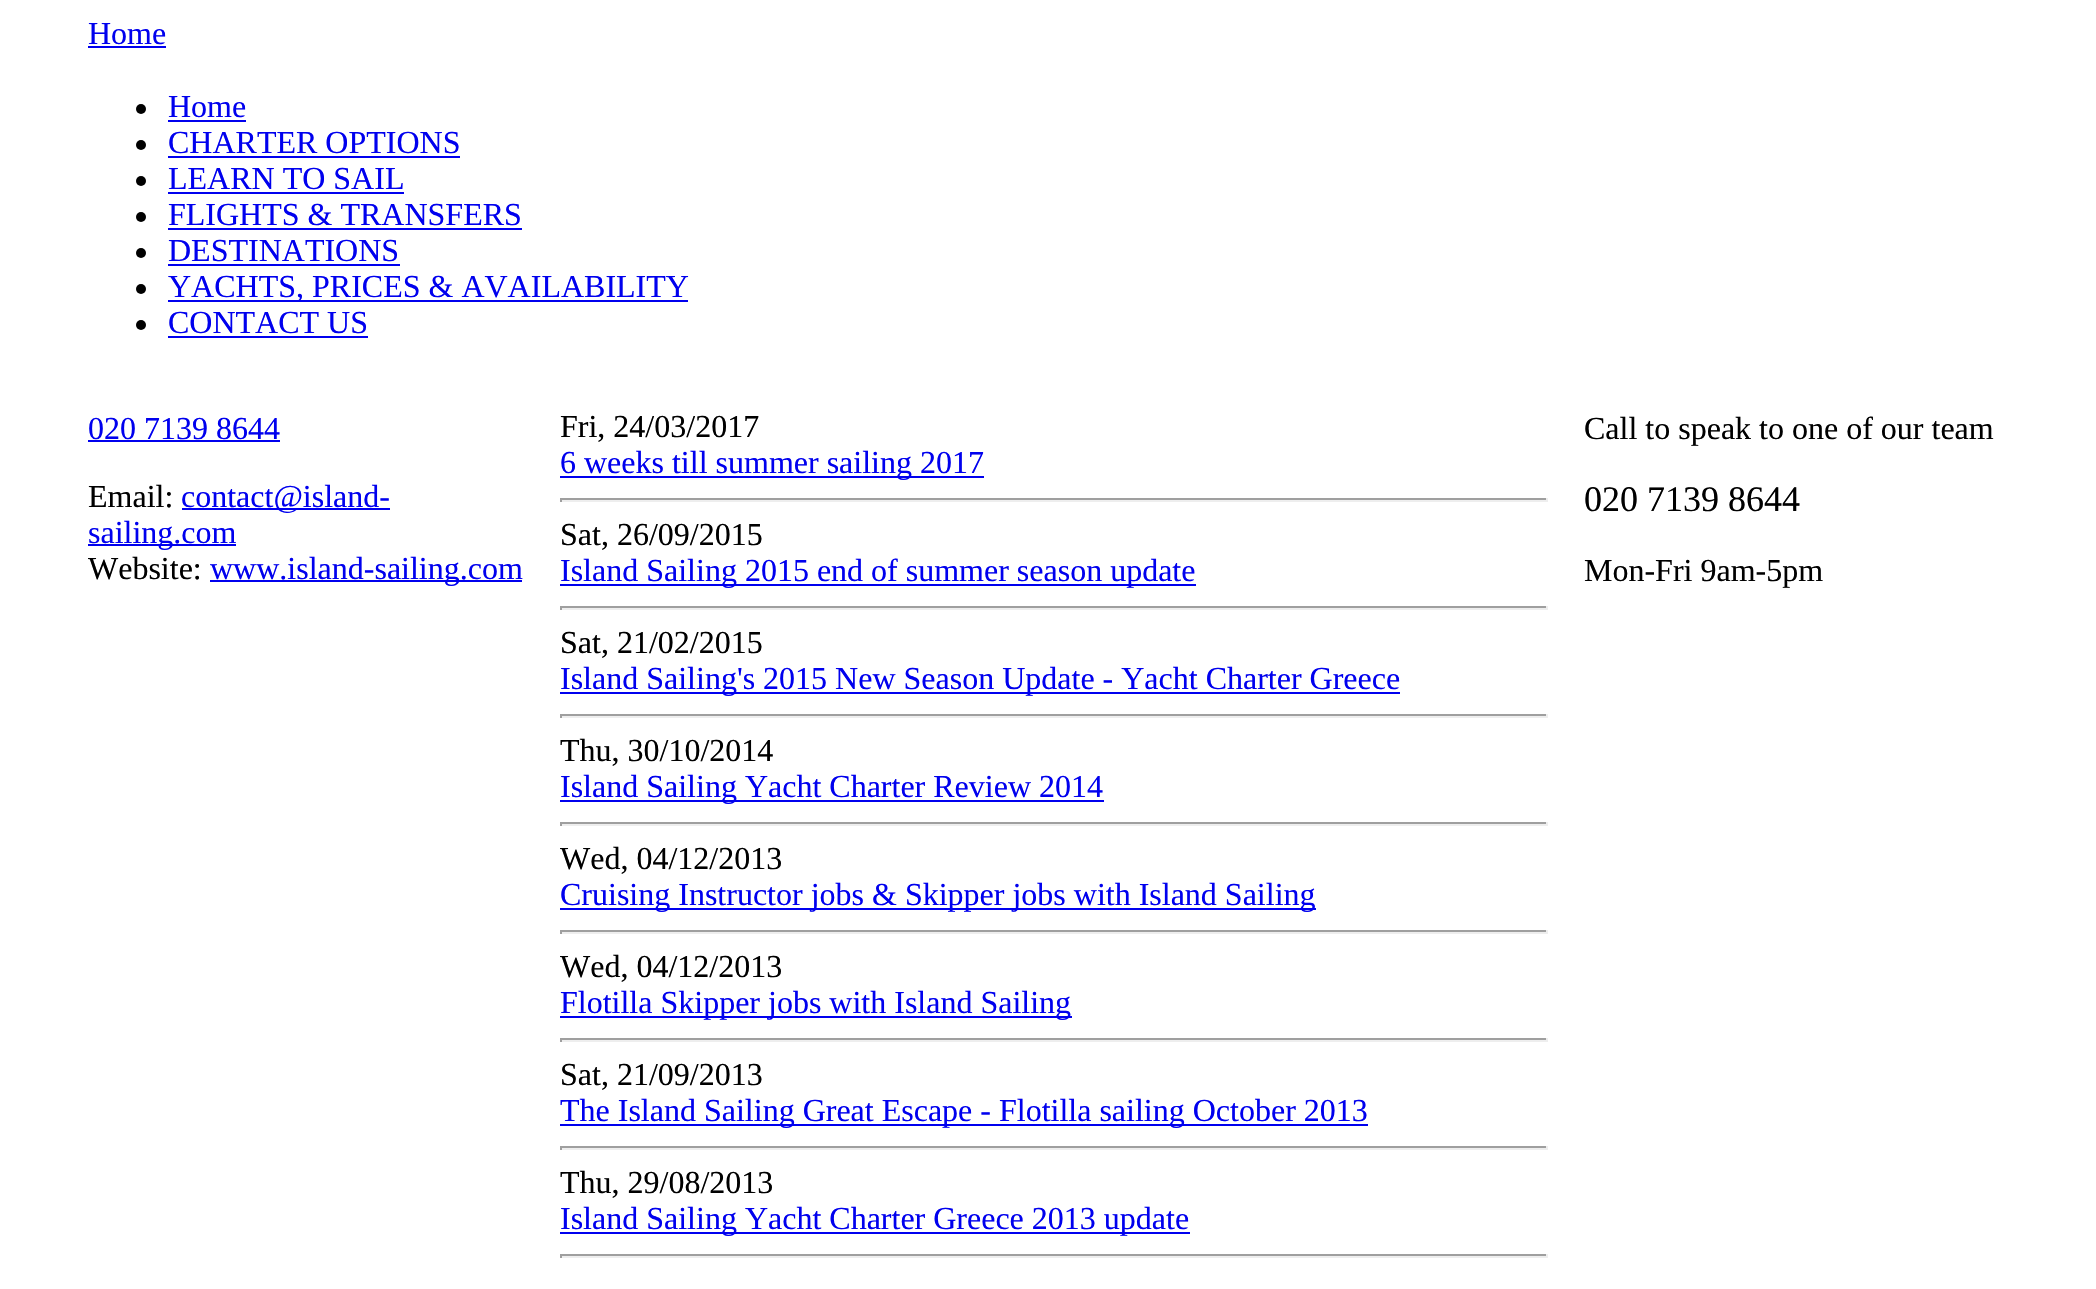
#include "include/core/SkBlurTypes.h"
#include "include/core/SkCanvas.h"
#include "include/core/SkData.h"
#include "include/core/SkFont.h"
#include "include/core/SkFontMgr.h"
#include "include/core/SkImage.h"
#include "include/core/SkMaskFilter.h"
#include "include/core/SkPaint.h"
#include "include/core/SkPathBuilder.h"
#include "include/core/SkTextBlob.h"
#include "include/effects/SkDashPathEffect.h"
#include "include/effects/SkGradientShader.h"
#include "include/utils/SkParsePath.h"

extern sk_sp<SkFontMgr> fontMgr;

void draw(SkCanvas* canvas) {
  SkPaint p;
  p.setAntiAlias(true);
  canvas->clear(SK_ColorWHITE);
  p.setColor(SkColorSetRGB(0, 0, 238));
  canvas->drawRect(SkRect::MakeLTRB(88, 46, 166, 48), p);
  p.setColor(SK_ColorBLACK);
  canvas->drawCircle(141, 109, 5, p);
  p.setColor(SkColorSetRGB(0, 0, 238));
  canvas->drawRect(SkRect::MakeLTRB(168, 120, 246, 122), p);
  p.setColor(SK_ColorBLACK);
  canvas->drawCircle(141, 145, 5, p);
  p.setColor(SkColorSetRGB(0, 0, 238));
  canvas->drawRect(SkRect::MakeLTRB(168, 156, 460, 158), p);
  p.setColor(SK_ColorBLACK);
  canvas->drawCircle(141, 181, 5, p);
  p.setColor(SkColorSetRGB(0, 0, 238));
  canvas->drawRect(SkRect::MakeLTRB(168, 192, 404, 194), p);
  p.setColor(SK_ColorBLACK);
  canvas->drawCircle(141, 217, 5, p);
  p.setColor(SkColorSetRGB(0, 0, 238));
  canvas->drawRect(SkRect::MakeLTRB(168, 228, 522, 230), p);
  p.setColor(SK_ColorBLACK);
  canvas->drawCircle(141, 253, 5, p);
  p.setColor(SkColorSetRGB(0, 0, 238));
  canvas->drawRect(SkRect::MakeLTRB(168, 264, 400, 266), p);
  p.setColor(SK_ColorBLACK);
  canvas->drawCircle(141, 289, 5, p);
  p.setColor(SkColorSetRGB(0, 0, 238));
  canvas->drawRect(SkRect::MakeLTRB(168, 300, 688, 302), p);
  p.setColor(SK_ColorBLACK);
  canvas->drawCircle(141, 325, 5, p);
  p.setColor(SkColorSetRGB(0, 0, 238));
  canvas->drawRect(SkRect::MakeLTRB(168, 336, 368, 338), p);
  canvas->drawRect(SkRect::MakeLTRB(88, 440, 280, 442), p);
  canvas->drawRect(SkRect::MakeLTRB(182, 508, 390, 510), p);
  canvas->drawRect(SkRect::MakeLTRB(88, 544, 236, 546), p);
  canvas->drawRect(SkRect::MakeLTRB(210, 580, 522, 582), p);
  canvas->drawRect(SkRect::MakeLTRB(560, 476, 984, 478), p);
  p.setColor(SkColorSetRGB(159, 159, 159));
  canvas->drawRect(SkRect::MakeLTRB(560, 498, 1548, 500), p);
  p.setColor(SkColorSetRGB(238, 238, 238));
  canvas->drawRect(SkRect::MakeLTRB(1546, 498, 1548, 502), p);
  canvas->drawRect(SkRect::MakeLTRB(560, 500, 1548, 502), p);
  p.setColor(SkColorSetRGB(159, 159, 159));
  canvas->drawRect(SkRect::MakeLTRB(560, 498, 562, 502), p);
  p.setColor(SkColorSetRGB(0, 0, 238));
  canvas->drawRect(SkRect::MakeLTRB(560, 584, 1196, 586), p);
  p.setColor(SkColorSetRGB(159, 159, 159));
  canvas->drawRect(SkRect::MakeLTRB(560, 606, 1548, 608), p);
  p.setColor(SkColorSetRGB(238, 238, 238));
  canvas->drawRect(SkRect::MakeLTRB(1546, 606, 1548, 610), p);
  canvas->drawRect(SkRect::MakeLTRB(560, 608, 1548, 610), p);
  p.setColor(SkColorSetRGB(159, 159, 159));
  canvas->drawRect(SkRect::MakeLTRB(560, 606, 562, 610), p);
  p.setColor(SkColorSetRGB(0, 0, 238));
  canvas->drawRect(SkRect::MakeLTRB(560, 692, 1400, 694), p);
  p.setColor(SkColorSetRGB(159, 159, 159));
  canvas->drawRect(SkRect::MakeLTRB(560, 714, 1548, 716), p);
  p.setColor(SkColorSetRGB(238, 238, 238));
  canvas->drawRect(SkRect::MakeLTRB(1546, 714, 1548, 718), p);
  canvas->drawRect(SkRect::MakeLTRB(560, 716, 1548, 718), p);
  p.setColor(SkColorSetRGB(159, 159, 159));
  canvas->drawRect(SkRect::MakeLTRB(560, 714, 562, 718), p);
  p.setColor(SkColorSetRGB(0, 0, 238));
  canvas->drawRect(SkRect::MakeLTRB(560, 800, 1104, 802), p);
  p.setColor(SkColorSetRGB(159, 159, 159));
  canvas->drawRect(SkRect::MakeLTRB(560, 822, 1548, 824), p);
  p.setColor(SkColorSetRGB(238, 238, 238));
  canvas->drawRect(SkRect::MakeLTRB(1546, 822, 1548, 826), p);
  canvas->drawRect(SkRect::MakeLTRB(560, 824, 1548, 826), p);
  p.setColor(SkColorSetRGB(159, 159, 159));
  canvas->drawRect(SkRect::MakeLTRB(560, 822, 562, 826), p);
  p.setColor(SkColorSetRGB(0, 0, 238));
  canvas->drawRect(SkRect::MakeLTRB(560, 908, 1316, 910), p);
  p.setColor(SkColorSetRGB(159, 159, 159));
  canvas->drawRect(SkRect::MakeLTRB(560, 930, 1548, 932), p);
  p.setColor(SkColorSetRGB(238, 238, 238));
  canvas->drawRect(SkRect::MakeLTRB(1546, 930, 1548, 934), p);
  canvas->drawRect(SkRect::MakeLTRB(560, 932, 1548, 934), p);
  p.setColor(SkColorSetRGB(159, 159, 159));
  canvas->drawRect(SkRect::MakeLTRB(560, 930, 562, 934), p);
  p.setColor(SkColorSetRGB(0, 0, 238));
  canvas->drawRect(SkRect::MakeLTRB(560, 1016, 1072, 1018), p);
  p.setColor(SkColorSetRGB(159, 159, 159));
  canvas->drawRect(SkRect::MakeLTRB(560, 1038, 1548, 1040), p);
  p.setColor(SkColorSetRGB(238, 238, 238));
  canvas->drawRect(SkRect::MakeLTRB(1546, 1038, 1548, 1042), p);
  canvas->drawRect(SkRect::MakeLTRB(560, 1040, 1548, 1042), p);
  p.setColor(SkColorSetRGB(159, 159, 159));
  canvas->drawRect(SkRect::MakeLTRB(560, 1038, 562, 1042), p);
  p.setColor(SkColorSetRGB(0, 0, 238));
  canvas->drawRect(SkRect::MakeLTRB(560, 1124, 1368, 1126), p);
  p.setColor(SkColorSetRGB(159, 159, 159));
  canvas->drawRect(SkRect::MakeLTRB(560, 1146, 1548, 1148), p);
  p.setColor(SkColorSetRGB(238, 238, 238));
  canvas->drawRect(SkRect::MakeLTRB(1546, 1146, 1548, 1150), p);
  canvas->drawRect(SkRect::MakeLTRB(560, 1148, 1548, 1150), p);
  p.setColor(SkColorSetRGB(159, 159, 159));
  canvas->drawRect(SkRect::MakeLTRB(560, 1146, 562, 1150), p);
  p.setColor(SkColorSetRGB(0, 0, 238));
  canvas->drawRect(SkRect::MakeLTRB(560, 1232, 1190, 1234), p);
  p.setColor(SkColorSetRGB(159, 159, 159));
  canvas->drawRect(SkRect::MakeLTRB(560, 1254, 1548, 1256), p);
  p.setColor(SkColorSetRGB(238, 238, 238));
  canvas->drawRect(SkRect::MakeLTRB(1546, 1254, 1548, 1258), p);
  canvas->drawRect(SkRect::MakeLTRB(560, 1256, 1548, 1258), p);
  p.setColor(SkColorSetRGB(159, 159, 159));
  canvas->drawRect(SkRect::MakeLTRB(560, 1254, 562, 1258), p);
  SkFont font1(fontMgr->matchFamilyStyle("Liberation Serif", SkFontStyle::Normal()), 32);
  font1.setSubpixel(true);
  p.setColor(SkColorSetRGB(0, 0, 238));
  canvas->drawString("Home", 88, 44, font1, p);
  canvas->drawString("Home", 168, 117, font1, p);
  canvas->drawString("CHARTER OPTIONS", 168, 153, font1, p);
  canvas->drawString("LEARN TO SAIL", 168, 189, font1, p);
  canvas->drawString("FLIGHTS & TRANSFERS", 168, 225, font1, p);
  canvas->drawString("DESTINATIONS", 168, 261, font1, p);
  canvas->drawString("YACHTS, PRICES & AVAILABILITY", 168, 297, font1, p);
  canvas->drawString("CONTACT US", 168, 333, font1, p);
  canvas->drawString("020 7139 8644", 88, 439, font1, p);
  p.setColor(SK_ColorBLACK);
  canvas->drawString("Email:", 88, 507, font1, p);
  p.setColor(SkColorSetRGB(0, 0, 238));
  canvas->drawString("contact@island-", 181, 507, font1, p);
  canvas->drawString("sailing.com", 88, 543, font1, p);
  p.setColor(SK_ColorBLACK);
  canvas->drawString("Website:", 88, 579, font1, p);
  p.setColor(SkColorSetRGB(0, 0, 238));
  canvas->drawString("www.island-sailing.com", 210, 579, font1, p);
  p.setColor(SK_ColorBLACK);
  canvas->drawString("Fri, 24/03/2017", 560, 437, font1, p);
  p.setColor(SkColorSetRGB(0, 0, 238));
  canvas->drawString("6 weeks till summer sailing 2017", 560, 473, font1, p);
  p.setColor(SK_ColorBLACK);
  canvas->drawString("Sat, 26/09/2015", 560, 545, font1, p);
  p.setColor(SkColorSetRGB(0, 0, 238));
  canvas->drawString("Island Sailing 2015 end of summer season update", 560, 581, font1, p);
  p.setColor(SK_ColorBLACK);
  canvas->drawString("Sat, 21/02/2015", 560, 653, font1, p);
  p.setColor(SkColorSetRGB(0, 0, 238));
  canvas->drawString("Island Sailing's 2015 New Season Update - Yacht Charter Greece", 560, 689, font1, p);
  p.setColor(SK_ColorBLACK);
  canvas->drawString("Thu, 30/10/2014", 560, 761, font1, p);
  p.setColor(SkColorSetRGB(0, 0, 238));
  canvas->drawString("Island Sailing Yacht Charter Review 2014", 560, 797, font1, p);
  p.setColor(SK_ColorBLACK);
  canvas->drawString("Wed, 04/12/2013", 560, 869, font1, p);
  p.setColor(SkColorSetRGB(0, 0, 238));
  canvas->drawString("Cruising Instructor jobs & Skipper jobs with Island Sailing", 560, 905, font1, p);
  p.setColor(SK_ColorBLACK);
  canvas->drawString("Wed, 04/12/2013", 560, 977, font1, p);
  p.setColor(SkColorSetRGB(0, 0, 238));
  canvas->drawString("Flotilla Skipper jobs with Island Sailing", 560, 1013, font1, p);
  p.setColor(SK_ColorBLACK);
  canvas->drawString("Sat, 21/09/2013", 560, 1085, font1, p);
  p.setColor(SkColorSetRGB(0, 0, 238));
  canvas->drawString("The Island Sailing Great Escape - Flotilla sailing October 2013", 560, 1121, font1, p);
  p.setColor(SK_ColorBLACK);
  canvas->drawString("Thu, 29/08/2013", 560, 1193, font1, p);
  p.setColor(SkColorSetRGB(0, 0, 238));
  canvas->drawString("Island Sailing Yacht Charter Greece 2013 update", 560, 1229, font1, p);
  p.setColor(SK_ColorBLACK);
  canvas->drawString("Call to speak to one of our team", 1584, 439, font1, p);
  SkFont font2(fontMgr->matchFamilyStyle("Liberation Serif", SkFontStyle::Normal()), 36);
  font2.setSubpixel(true);
  canvas->drawString("020 7139 8644", 1584, 511, font2, p);
  canvas->drawString("Mon-Fri 9am-5pm", 1584, 581, font1, p);
}
